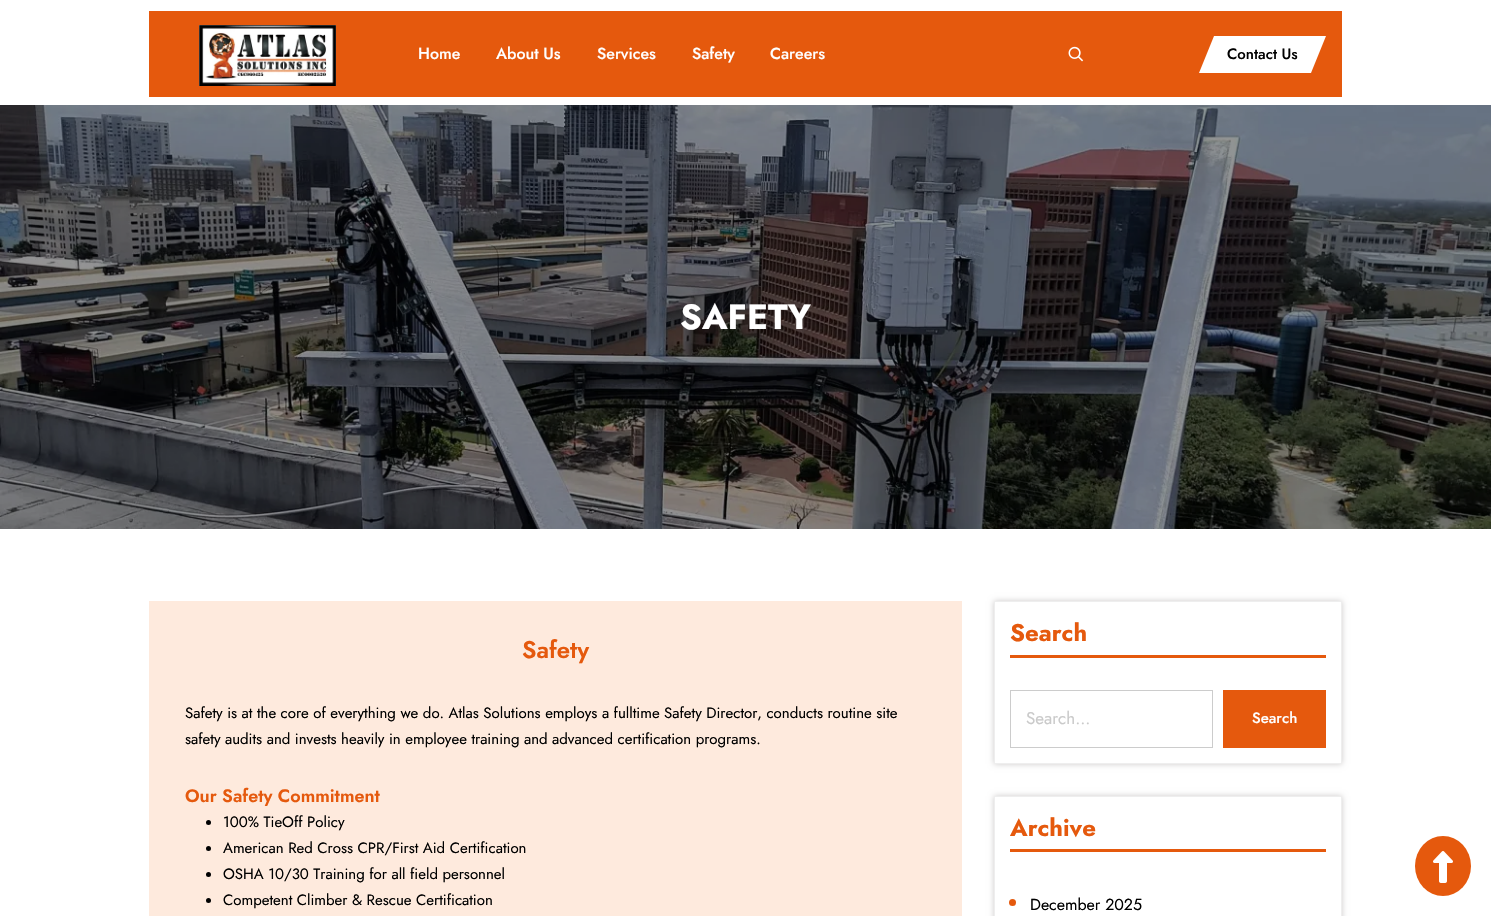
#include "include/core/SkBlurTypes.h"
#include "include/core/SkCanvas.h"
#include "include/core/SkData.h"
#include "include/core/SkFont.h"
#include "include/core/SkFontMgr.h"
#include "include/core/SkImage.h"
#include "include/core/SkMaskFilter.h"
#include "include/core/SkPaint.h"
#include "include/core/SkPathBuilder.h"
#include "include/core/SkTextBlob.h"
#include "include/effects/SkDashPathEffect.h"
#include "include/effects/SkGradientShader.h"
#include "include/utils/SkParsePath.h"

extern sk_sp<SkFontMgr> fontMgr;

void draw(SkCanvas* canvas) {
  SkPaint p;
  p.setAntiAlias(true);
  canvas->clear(SK_ColorWHITE);
  p.setColor(SkColorSetRGB(229, 89, 13));
  canvas->drawRect(SkRect::MakeLTRB(149, 11, 1342, 97), p);
  canvas->drawImageRect(SkImages::DeferredFromEncodedData(SkData::MakeFromFileName("images/1.png")), SkRect::MakeLTRB(199, 25, 336, 86), SkSamplingOptions());
  canvas->drawImageRect(SkImages::DeferredFromEncodedData(SkData::MakeFromFileName("images/2.png")), SkRect::MakeLTRB(1068, 46, 1084, 62), SkSamplingOptions());
  p.setColor(SK_ColorWHITE);
  canvas->drawPath(SkPathBuilder().moveTo(1199, 73).lineTo(1214, 36).lineTo(1326, 36).lineTo(1311, 73).close().detach(), p);
  canvas->drawImageRect(SkImages::DeferredFromEncodedData(SkData::MakeFromFileName("images/3.png")), SkRect::MakeLTRB(0, 105, 1491, 529), SkSamplingOptions());
  p.setColor(SkColorSetRGB(254, 234, 221));
  canvas->drawRect(SkRect::MakeLTRB(149, 601, 962, 916), p);
  p.setColor(SK_ColorBLACK);
  canvas->drawCircle(208.5f, 822.5f, 2.5f, p);
  canvas->drawCircle(208.5f, 848.5f, 2.5f, p);
  canvas->drawCircle(208.5f, 874.5f, 2.5f, p);
  canvas->drawCircle(208.5f, 900.5f, 2.5f, p);
  canvas->save();
  canvas->clipPath(SkPathBuilder(SkPathFillType::kEvenOdd).moveTo(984, 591).lineTo(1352, 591).lineTo(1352, 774).lineTo(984, 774).close().moveTo(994, 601).lineTo(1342, 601).lineTo(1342, 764).lineTo(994, 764).close().detach(), true);
  p.setColor(SkColorSetRGB(205, 202, 202));
  p.setMaskFilter(SkMaskFilter::MakeBlur(kNormal_SkBlurStyle, 3));
  canvas->drawRect(SkRect::MakeLTRB(994, 601, 1342, 764), p);
  p.setMaskFilter(nullptr);
  canvas->restore();
  p.setStyle(SkPaint::kStroke_Style);
  p.setStrokeWidth(1);
  p.setColor(SkColorSetRGB(238, 238, 238));
  canvas->drawRect(SkRect::MakeLTRB(994.5f, 601.5f, 1341.5f, 763.5f), p);
  p.setStyle(SkPaint::kFill_Style);
  p.setColor(SkColorSetRGB(229, 89, 13));
  canvas->drawRect(SkRect::MakeLTRB(1010, 655, 1326, 658), p);
  p.setStyle(SkPaint::kStroke_Style);
  p.setColor(SkColorSetRGB(204, 204, 204));
  canvas->drawRect(SkRect::MakeLTRB(1010.5f, 690.5f, 1212.5f, 747.5f), p);
  p.setStyle(SkPaint::kFill_Style);
  p.setColor(SkColorSetRGB(229, 89, 13));
  canvas->drawRect(SkRect::MakeLTRB(1223, 690, 1326, 748), p);
  canvas->save();
  canvas->clipPath(SkPathBuilder(SkPathFillType::kEvenOdd).moveTo(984, 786).lineTo(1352, 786).lineTo(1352, 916).lineTo(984, 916).close().moveTo(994, 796).lineTo(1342, 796).lineTo(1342, 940).lineTo(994, 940).close().detach(), true);
  p.setColor(SkColorSetRGB(205, 202, 202));
  p.setMaskFilter(SkMaskFilter::MakeBlur(kNormal_SkBlurStyle, 3));
  canvas->drawRect(SkRect::MakeLTRB(994, 796, 1342, 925), p);
  p.setMaskFilter(nullptr);
  canvas->restore();
  p.setStyle(SkPaint::kStroke_Style);
  p.setColor(SkColorSetRGB(238, 238, 238));
  canvas->drawRect(SkRect::MakeLTRB(994.5f, 796.5f, 1341.5f, 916.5f), p);
  p.setStyle(SkPaint::kFill_Style);
  p.setColor(SkColorSetRGB(229, 89, 13));
  canvas->drawRect(SkRect::MakeLTRB(1010, 849, 1326, 852), p);
  canvas->drawCircle(1012.5f, 902.5f, 3.5f, p);
  canvas->drawOval(SkRect::MakeLTRB(1415, 836, 1471, 896), p);
  canvas->drawImageRect(SkImages::DeferredFromEncodedData(SkData::MakeFromFileName("images/4.png")), SkRect::MakeLTRB(1433, 851, 1453, 883), SkSamplingOptions());
  SkFont font1(fontMgr->matchFamilyStyle("Jost", SkFontStyle(500, SkFontStyle::kNormal_Width, SkFontStyle::kUpright_Slant)), 16);
  font1.setSubpixel(true);
  p.setColor(SK_ColorWHITE);
  canvas->drawString("Home", 418, 59, font1, p);
  canvas->drawString("About Us", 496, 59, font1, p);
  canvas->drawString("Services", 597, 59, font1, p);
  canvas->drawString("Safety", 692, 59, font1, p);
  canvas->drawString("Careers", 770, 59, font1, p);
  SkFont font2(fontMgr->matchFamilyStyle("Jost", SkFontStyle(500, SkFontStyle::kNormal_Width, SkFontStyle::kUpright_Slant)), 15);
  font2.setSubpixel(true);
  p.setColor(SK_ColorBLACK);
  canvas->drawString("Contact Us", 1227, 59, font2, p);
  SkFont font3(fontMgr->matchFamilyStyle("Jost", SkFontStyle::Bold()), 35);
  font3.setSubpixel(true);
  p.setColor(SK_ColorWHITE);
  canvas->drawString("SAFETY", 680, 329, font3, p);
  SkFont font4(fontMgr->matchFamilyStyle("Jost", SkFontStyle(600, SkFontStyle::kNormal_Width, SkFontStyle::kUpright_Slant)), 24);
  font4.setSubpixel(true);
  p.setColor(SkColorSetRGB(229, 89, 13));
  canvas->drawString("Safety", 522, 658, font4, p);
  SkFont font5(fontMgr->matchFamilyStyle("Jost", SkFontStyle::Normal()), 15);
  font5.setSubpixel(true);
  p.setColor(SK_ColorBLACK);
  canvas->drawString("Safety is at the core of everything we do. Atlas Solutions employs a full‑time Safety Director, conducts routine site", 185, 718, font5, p);
  canvas->drawString("safety audits and invests heavily in employee training and advanced certification programs.", 185, 744, font5, p);
  SkFont font6(fontMgr->matchFamilyStyle("Jost", SkFontStyle(600, SkFontStyle::kNormal_Width, SkFontStyle::kUpright_Slant)), 18);
  font6.setSubpixel(true);
  p.setColor(SkColorSetRGB(229, 89, 13));
  canvas->drawString("Our Safety Commitment", 185, 802, font6, p);
  p.setColor(SK_ColorBLACK);
  canvas->drawString("100% Tie‑Off Policy", 223, 827, font5, p);
  canvas->drawString("American Red Cross CPR/First Aid Certification", 223, 853, font5, p);
  canvas->drawString("OSHA 10/30 Training for all field personnel", 223, 879, font5, p);
  canvas->drawString("Competent Climber & Rescue Certification", 223, 905, font5, p);
  SkFont font7(fontMgr->matchFamilyStyle("Jost", SkFontStyle::Bold()), 24);
  font7.setSubpixel(true);
  p.setColor(SkColorSetRGB(229, 89, 13));
  canvas->drawString("Search", 1010, 641, font7, p);
  SkFont font8(fontMgr->matchFamilyStyle("Jost", SkFontStyle::Normal()), 17);
  font8.setSubpixel(true);
  p.setColor(SkColorSetRGB(202, 202, 202));
  canvas->drawString("Search...", 1026, 724, font8, p);
  p.setColor(SK_ColorWHITE);
  canvas->drawString("Search", 1252, 723, font2, p);
  p.setColor(SkColorSetRGB(229, 89, 13));
  canvas->drawString("Archive", 1010, 836, font7, p);
  SkFont font9(fontMgr->matchFamilyStyle("Jost", SkFontStyle::Normal()), 16);
  font9.setSubpixel(true);
  p.setColor(SK_ColorBLACK);
  canvas->drawString("December 2025", 1030, 910, font9, p);
}
